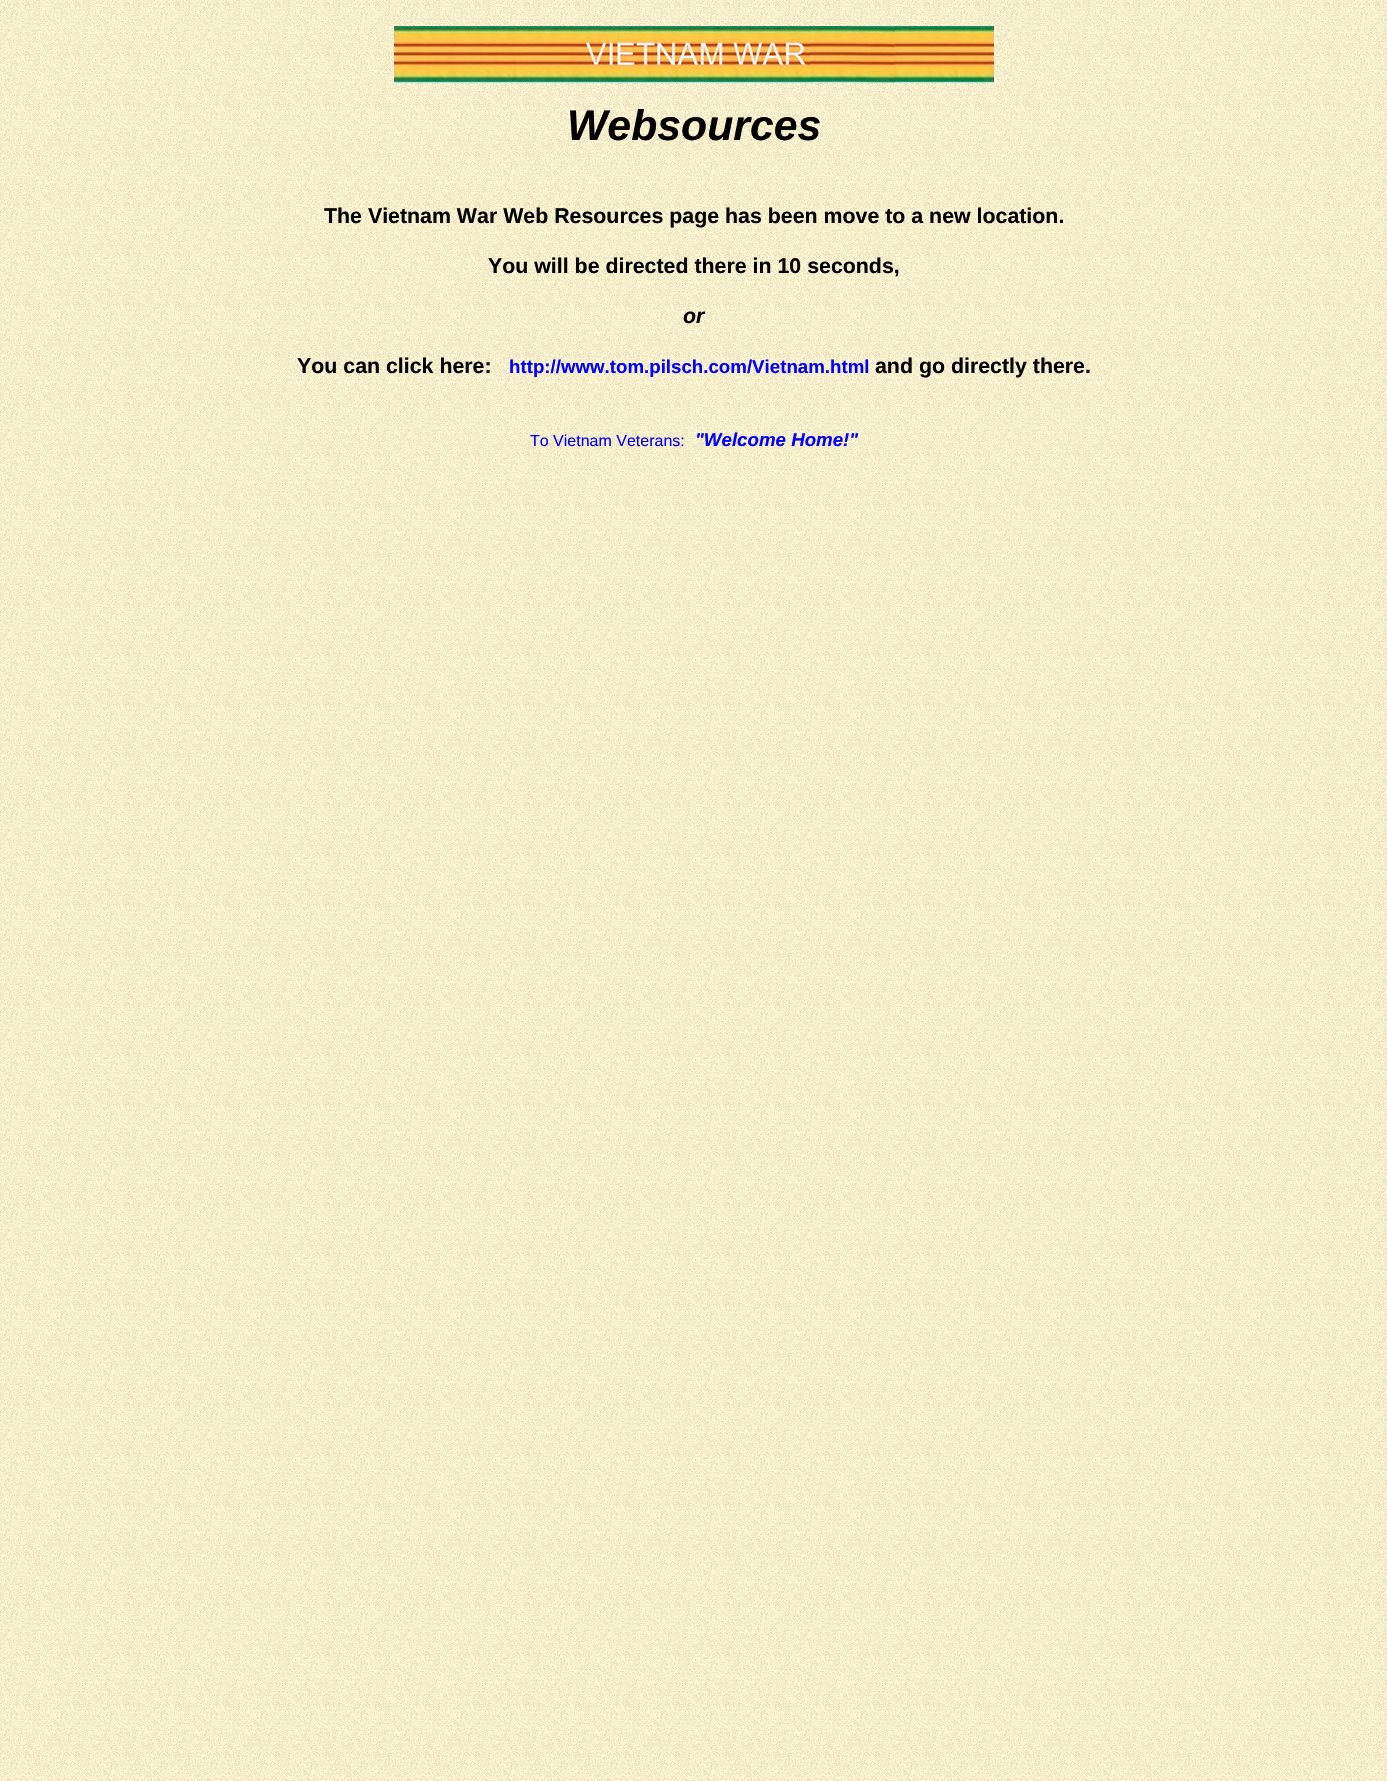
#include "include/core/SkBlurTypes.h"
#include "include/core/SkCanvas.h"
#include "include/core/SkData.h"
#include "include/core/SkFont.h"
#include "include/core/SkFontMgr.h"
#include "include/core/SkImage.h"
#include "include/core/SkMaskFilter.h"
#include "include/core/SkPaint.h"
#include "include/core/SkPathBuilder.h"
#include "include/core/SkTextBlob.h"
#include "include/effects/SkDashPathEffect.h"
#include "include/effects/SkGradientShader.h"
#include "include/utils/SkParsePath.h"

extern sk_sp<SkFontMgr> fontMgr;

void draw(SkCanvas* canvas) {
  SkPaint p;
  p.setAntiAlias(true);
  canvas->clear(SK_ColorWHITE);
  canvas->drawImageRect(SkImages::DeferredFromEncodedData(SkData::MakeFromFileName("images/1.png")), SkRect::MakeLTRB(0, 0, 1387, 1781), SkSamplingOptions());
  canvas->drawImageRect(SkImages::DeferredFromEncodedData(SkData::MakeFromFileName("images/2.png")), SkRect::MakeLTRB(394, 26, 994, 83), SkSamplingOptions());
  SkFont font1(fontMgr->matchFamilyStyle("Liberation Sans", SkFontStyle::BoldItalic()), 42.75f);
  font1.setSubpixel(true);
  p.setColor(SK_ColorBLACK);
  canvas->drawString("Websources", 567, 140, font1, p);
  SkFont font2(fontMgr->matchFamilyStyle("Liberation Sans", SkFontStyle::Bold()), 21.35f);
  font2.setSubpixel(true);
  canvas->drawString("The Vietnam War Web Resources page has been move to a new location.", 324, 223, font2, p);
  canvas->drawString("You will be directed there in 10 seconds,", 488, 273, font2, p);
  SkFont font3(fontMgr->matchFamilyStyle("Liberation Sans", SkFontStyle::BoldItalic()), 21.35f);
  font3.setSubpixel(true);
  canvas->drawString("or", 683, 323, font3, p);
  canvas->drawString("You can click here:", 297, 373, font2, p);
  SkFont font4(fontMgr->matchFamilyStyle("Liberation Sans", SkFontStyle::Bold()), 18.7f);
  font4.setSubpixel(true);
  p.setColor(SkColorSetRGB(0, 0, 255));
  canvas->drawString("http://www.tom.pilsch.com/Vietnam.html", 509, 373, font4, p);
  p.setColor(SK_ColorBLACK);
  canvas->drawString("and go directly there.", 875, 373, font2, p);
  SkFont font5(fontMgr->matchFamilyStyle("Liberation Sans", SkFontStyle::Normal()), 16);
  font5.setSubpixel(true);
  p.setColor(SkColorSetRGB(0, 0, 255));
  canvas->drawString("To Vietnam Veterans:", 530, 446, font5, p);
  SkFont font6(fontMgr->matchFamilyStyle("Liberation Sans", SkFontStyle::BoldItalic()), 18.7f);
  font6.setSubpixel(true);
  canvas->drawString("\"Welcome Home!\"", 695, 446, font6, p);
}
